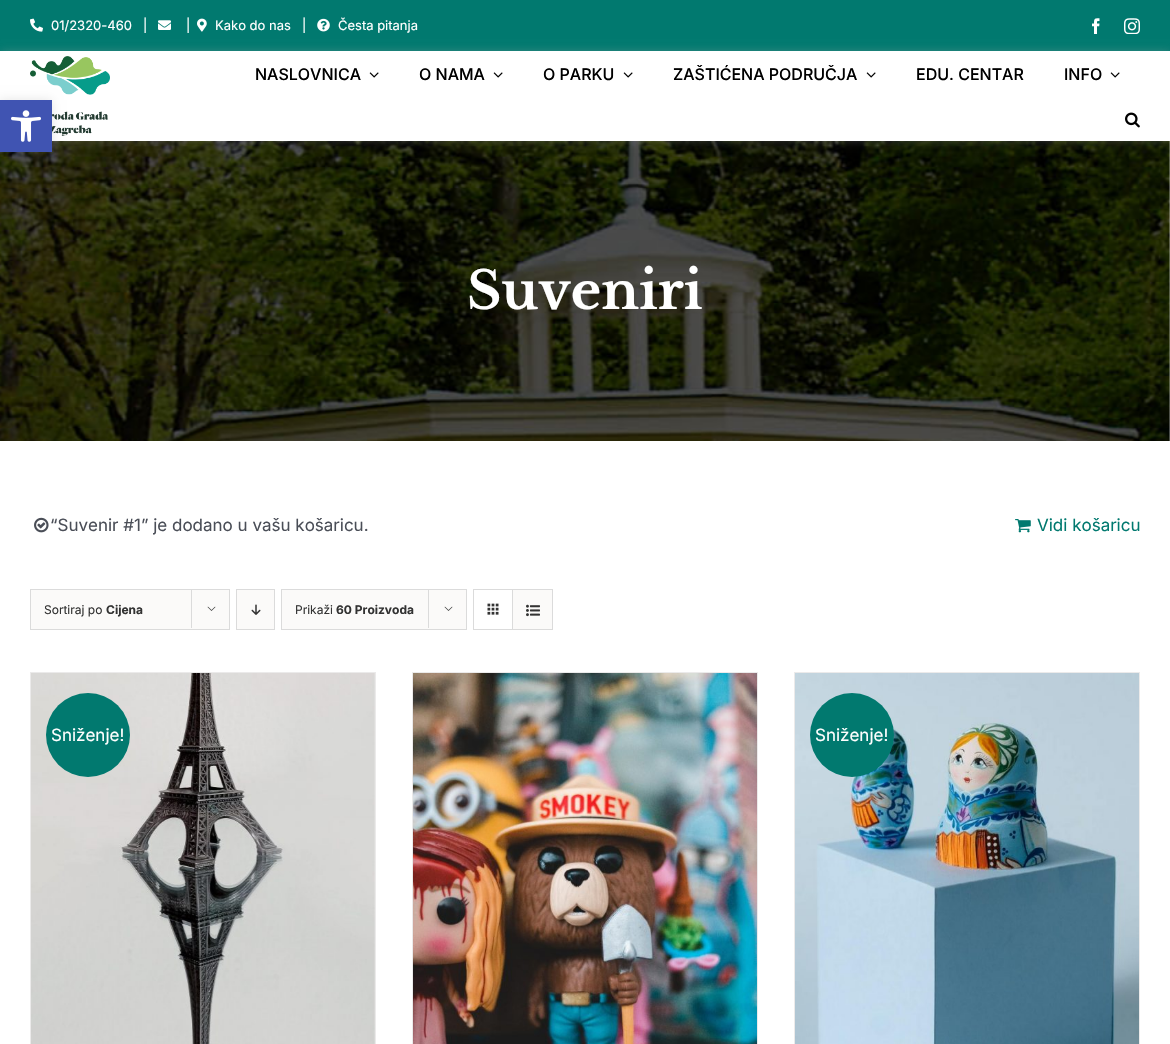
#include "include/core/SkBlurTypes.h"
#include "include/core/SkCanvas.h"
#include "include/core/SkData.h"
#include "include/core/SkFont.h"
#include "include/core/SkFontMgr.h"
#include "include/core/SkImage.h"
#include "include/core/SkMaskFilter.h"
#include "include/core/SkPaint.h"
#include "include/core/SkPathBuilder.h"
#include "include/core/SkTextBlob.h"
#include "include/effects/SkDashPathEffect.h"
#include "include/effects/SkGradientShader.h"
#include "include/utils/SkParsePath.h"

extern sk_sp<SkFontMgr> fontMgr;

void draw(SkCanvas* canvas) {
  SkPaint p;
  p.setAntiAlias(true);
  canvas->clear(SK_ColorWHITE);
  p.setColor(SkColorSetRGB(1, 121, 111));
  canvas->drawRect(SkRect::MakeLTRB(0, 0, 1170, 51), p);
  canvas->drawImageRect(SkImages::DeferredFromEncodedData(SkData::MakeFromFileName("images/11.png")), SkRect::MakeLTRB(0, 141, 1170, 441), SkSamplingOptions());
  canvas->save();
  canvas->clipPath(SkPathBuilder(SkPathFillType::kEvenOdd).moveTo(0, 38).lineTo(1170, 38).lineTo(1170, 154).lineTo(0, 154).close().moveTo(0, 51).lineTo(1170, 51).lineTo(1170, 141).lineTo(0, 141).close().detach(), true);
  p.setColor(SkColorSetARGB(77, 168, 168, 168));
  p.setMaskFilter(SkMaskFilter::MakeBlur(kNormal_SkBlurStyle, 4));
  canvas->drawRect(SkRect::MakeLTRB(1, 51, 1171, 141), p);
  p.setMaskFilter(nullptr);
  canvas->restore();
  canvas->drawImageRect(SkImages::DeferredFromEncodedData(SkData::MakeFromFileName("images/8.png")), SkRect::MakeLTRB(30, 56, 110, 136), SkSamplingOptions());
  p.setColor(SkColorSetARGB(26, 0, 0, 0));
  p.setMaskFilter(SkMaskFilter::MakeBlur(kNormal_SkBlurStyle, 5));
  canvas->drawRect(SkRect::MakeLTRB(0, 100, 52, 152), p);
  p.setMaskFilter(nullptr);
  p.setColor(SkColorSetRGB(64, 84, 178));
  canvas->drawRect(SkRect::MakeLTRB(0, 100, 52, 152), p);
  canvas->drawImageRect(SkImages::DeferredFromEncodedData(SkData::MakeFromFileName("images/1.png")), SkRect::MakeLTRB(11, 110, 41, 142), SkSamplingOptions());
  canvas->drawImageRect(SkImages::DeferredFromEncodedData(SkData::MakeFromFileName("images/2.png")), SkRect::MakeLTRB(30, 18, 43, 32), SkSamplingOptions());
  canvas->drawImageRect(SkImages::DeferredFromEncodedData(SkData::MakeFromFileName("images/3.png")), SkRect::MakeLTRB(158, 20, 171, 30), SkSamplingOptions());
  canvas->drawImageRect(SkImages::DeferredFromEncodedData(SkData::MakeFromFileName("images/4.png")), SkRect::MakeLTRB(197, 18, 207, 32), SkSamplingOptions());
  canvas->drawImageRect(SkImages::DeferredFromEncodedData(SkData::MakeFromFileName("images/5.png")), SkRect::MakeLTRB(317, 18, 330, 32), SkSamplingOptions());
  canvas->drawImageRect(SkImages::DeferredFromEncodedData(SkData::MakeFromFileName("images/6.png")), SkRect::MakeLTRB(1092, 18, 1100, 34), SkSamplingOptions());
  canvas->drawImageRect(SkImages::DeferredFromEncodedData(SkData::MakeFromFileName("images/7.png")), SkRect::MakeLTRB(1124, 18, 1140, 34), SkSamplingOptions());
  canvas->drawImageRect(SkImages::DeferredFromEncodedData(SkData::MakeFromFileName("images/9.png")), SkRect::MakeLTRB(369, 72, 379, 78), SkSamplingOptions());
  canvas->drawImageRect(SkImages::DeferredFromEncodedData(SkData::MakeFromFileName("images/9.png")), SkRect::MakeLTRB(493, 72, 503, 78), SkSamplingOptions());
  canvas->drawImageRect(SkImages::DeferredFromEncodedData(SkData::MakeFromFileName("images/9.png")), SkRect::MakeLTRB(623, 72, 633, 78), SkSamplingOptions());
  canvas->drawImageRect(SkImages::DeferredFromEncodedData(SkData::MakeFromFileName("images/9.png")), SkRect::MakeLTRB(866, 72, 876, 78), SkSamplingOptions());
  canvas->drawImageRect(SkImages::DeferredFromEncodedData(SkData::MakeFromFileName("images/9.png")), SkRect::MakeLTRB(1110, 72, 1120, 78), SkSamplingOptions());
  canvas->drawImageRect(SkImages::DeferredFromEncodedData(SkData::MakeFromFileName("images/10.png")), SkRect::MakeLTRB(1125, 112, 1140, 128), SkSamplingOptions());
  canvas->drawImageRect(SkImages::DeferredFromEncodedData(SkData::MakeFromFileName("images/12.png")), SkRect::MakeLTRB(34, 517, 49, 533), SkSamplingOptions());
  canvas->drawImageRect(SkImages::DeferredFromEncodedData(SkData::MakeFromFileName("images/13.png")), SkRect::MakeLTRB(1015, 519, 1031, 533), SkSamplingOptions());
  p.setColor(SkColorSetRGB(251, 250, 249));
  canvas->drawRect(SkRect::MakeLTRB(30.5f, 589.5f, 229.5f, 629.5f), p);
  p.setStyle(SkPaint::kStroke_Style);
  p.setStrokeWidth(1);
  p.setColor(SkColorSetRGB(219, 219, 219));
  canvas->drawRect(SkRect::MakeLTRB(30.5f, 589.5f, 229.5f, 629.5f), p);
  p.setStyle(SkPaint::kFill_Style);
  canvas->drawRect(SkRect::MakeLTRB(191, 589, 192, 628), p);
  canvas->drawImageRect(SkImages::DeferredFromEncodedData(SkData::MakeFromFileName("images/14.png")), SkRect::MakeLTRB(207, 606, 216, 611), SkSamplingOptions());
  p.setColor(SkColorSetRGB(251, 250, 249));
  canvas->drawRect(SkRect::MakeLTRB(236.5f, 589.5f, 274.5f, 629.5f), p);
  p.setStyle(SkPaint::kStroke_Style);
  p.setColor(SkColorSetRGB(219, 219, 219));
  canvas->drawRect(SkRect::MakeLTRB(236.5f, 589.5f, 274.5f, 629.5f), p);
  canvas->drawImageRect(SkImages::DeferredFromEncodedData(SkData::MakeFromFileName("images/15.png")), SkRect::MakeLTRB(251, 604, 261, 615), SkSamplingOptions());
  p.setStyle(SkPaint::kFill_Style);
  p.setColor(SkColorSetRGB(251, 250, 249));
  canvas->drawRect(SkRect::MakeLTRB(281.5f, 589.5f, 466.5f, 629.5f), p);
  p.setStyle(SkPaint::kStroke_Style);
  p.setColor(SkColorSetRGB(219, 219, 219));
  canvas->drawRect(SkRect::MakeLTRB(281.5f, 589.5f, 466.5f, 629.5f), p);
  p.setStyle(SkPaint::kFill_Style);
  canvas->drawRect(SkRect::MakeLTRB(428, 589, 429, 628), p);
  canvas->drawImageRect(SkImages::DeferredFromEncodedData(SkData::MakeFromFileName("images/14.png")), SkRect::MakeLTRB(444, 606, 453, 611), SkSamplingOptions());
  p.setStyle(SkPaint::kStroke_Style);
  canvas->drawRect(SkRect::MakeLTRB(473.5f, 589.5f, 552.5f, 629.5f), p);
  p.setStyle(SkPaint::kFill_Style);
  canvas->drawRect(SkRect::MakeLTRB(512, 590, 513, 629), p);
  canvas->drawImageRect(SkImages::DeferredFromEncodedData(SkData::MakeFromFileName("images/16.png")), SkRect::MakeLTRB(487, 603, 499, 615), SkSamplingOptions());
  p.setColor(SkColorSetRGB(251, 250, 249));
  canvas->drawRect(SkRect::MakeLTRB(513, 590, 552, 629), p);
  canvas->drawImageRect(SkImages::DeferredFromEncodedData(SkData::MakeFromFileName("images/17.png")), SkRect::MakeLTRB(526, 604, 540, 617), SkSamplingOptions());
  p.setColor(SkColorSetRGB(235, 234, 234));
  canvas->drawRect(SkRect::MakeLTRB(30, 672, 376, 673), p);
  canvas->drawRect(SkRect::MakeLTRB(375, 672, 376, 1044), p);
  canvas->drawRect(SkRect::MakeLTRB(30, 672, 31, 1044), p);
  canvas->drawImageRect(SkImages::DeferredFromEncodedData(SkData::MakeFromFileName("images/18.png")), SkRect::MakeLTRB(31, 673, 375, 1044), SkSamplingOptions());
  p.setColor(SkColorSetRGB(1, 121, 111));
  canvas->drawCircle(88, 735, 42, p);
  p.setColor(SkColorSetRGB(235, 234, 234));
  canvas->drawRect(SkRect::MakeLTRB(412, 672, 758, 673), p);
  canvas->drawRect(SkRect::MakeLTRB(757, 672, 758, 1044), p);
  canvas->drawRect(SkRect::MakeLTRB(412, 672, 413, 1044), p);
  canvas->drawImageRect(SkImages::DeferredFromEncodedData(SkData::MakeFromFileName("images/19.png")), SkRect::MakeLTRB(413, 673, 757, 1044), SkSamplingOptions());
  canvas->drawRect(SkRect::MakeLTRB(794, 672, 1140, 673), p);
  canvas->drawRect(SkRect::MakeLTRB(1139, 672, 1140, 1044), p);
  canvas->drawRect(SkRect::MakeLTRB(794, 672, 795, 1044), p);
  canvas->drawImageRect(SkImages::DeferredFromEncodedData(SkData::MakeFromFileName("images/20.png")), SkRect::MakeLTRB(795, 673, 1139, 1044), SkSamplingOptions());
  p.setColor(SkColorSetRGB(1, 121, 111));
  canvas->drawCircle(852, 735, 42, p);
  SkFont font1(fontMgr->matchFamilyStyle("Inter", SkFontStyle::Normal()), 13);
  font1.setSubpixel(true);
  p.setColor(SK_ColorWHITE);
  canvas->drawString("01/2320-460", 51, 30, font1, p);
  canvas->drawString("|", 143, 30, font1, p);
  canvas->drawString("|", 186, 30, font1, p);
  canvas->drawString("Kako do nas", 215, 30, font1, p);
  canvas->drawString("|", 302, 30, font1, p);
  canvas->drawString("Česta pitanja", 338, 30, font1, p);
  SkFont font2(fontMgr->matchFamilyStyle("Inter", SkFontStyle(500, SkFontStyle::kNormal_Width, SkFontStyle::kUpright_Slant)), 16);
  font2.setSubpixel(true);
  p.setColor(SK_ColorBLACK);
  canvas->drawString("NASLOVNICA", 255, 80, font2, p);
  canvas->drawString("O NAMA", 419, 80, font2, p);
  canvas->drawString("O PARKU", 543, 80, font2, p);
  canvas->drawString("ZAŠTIĆENA PODRUČJA", 673, 80, font2, p);
  canvas->drawString("EDU. CENTAR", 916, 80, font2, p);
  canvas->drawString("INFO", 1064, 80, font2, p);
  SkFont font3(fontMgr->matchFamilyStyle("Libre Baskerville", SkFontStyle::Bold()), 52);
  font3.setSubpixel(true);
  p.setColor(SK_ColorWHITE);
  canvas->drawString("Suveniri", 467, 309, font3, p);
  SkFont font4(fontMgr->matchFamilyStyle("Inter", SkFontStyle::Normal()), 17);
  font4.setSubpixel(true);
  p.setColor(SkColorSetRGB(74, 78, 87));
  canvas->drawString("“Suvenir #1” je dodano u vašu košaricu.", 50, 531, font4, p);
  p.setColor(SkColorSetRGB(1, 121, 111));
  canvas->drawString("Vidi košaricu", 1037, 531, font4, p);
  SkFont font5(fontMgr->matchFamilyStyle("Inter", SkFontStyle::Normal()), 12);
  font5.setSubpixel(true);
  p.setColor(SkColorSetRGB(51, 51, 51));
  canvas->drawString("Sortiraj po", 44, 614, font5, p);
  SkFont font6(fontMgr->matchFamilyStyle("Inter", SkFontStyle::Bold()), 12);
  font6.setSubpixel(true);
  canvas->drawString("Cijena", 106, 614, font6, p);
  canvas->drawString("Prikaži", 295, 614, font5, p);
  canvas->drawString("60 Proizvoda", 336, 614, font6, p);
  p.setColor(SK_ColorWHITE);
  canvas->drawString("Sniženje!", 51, 741, font4, p);
  canvas->drawString("Sniženje!", 815, 741, font4, p);
}
